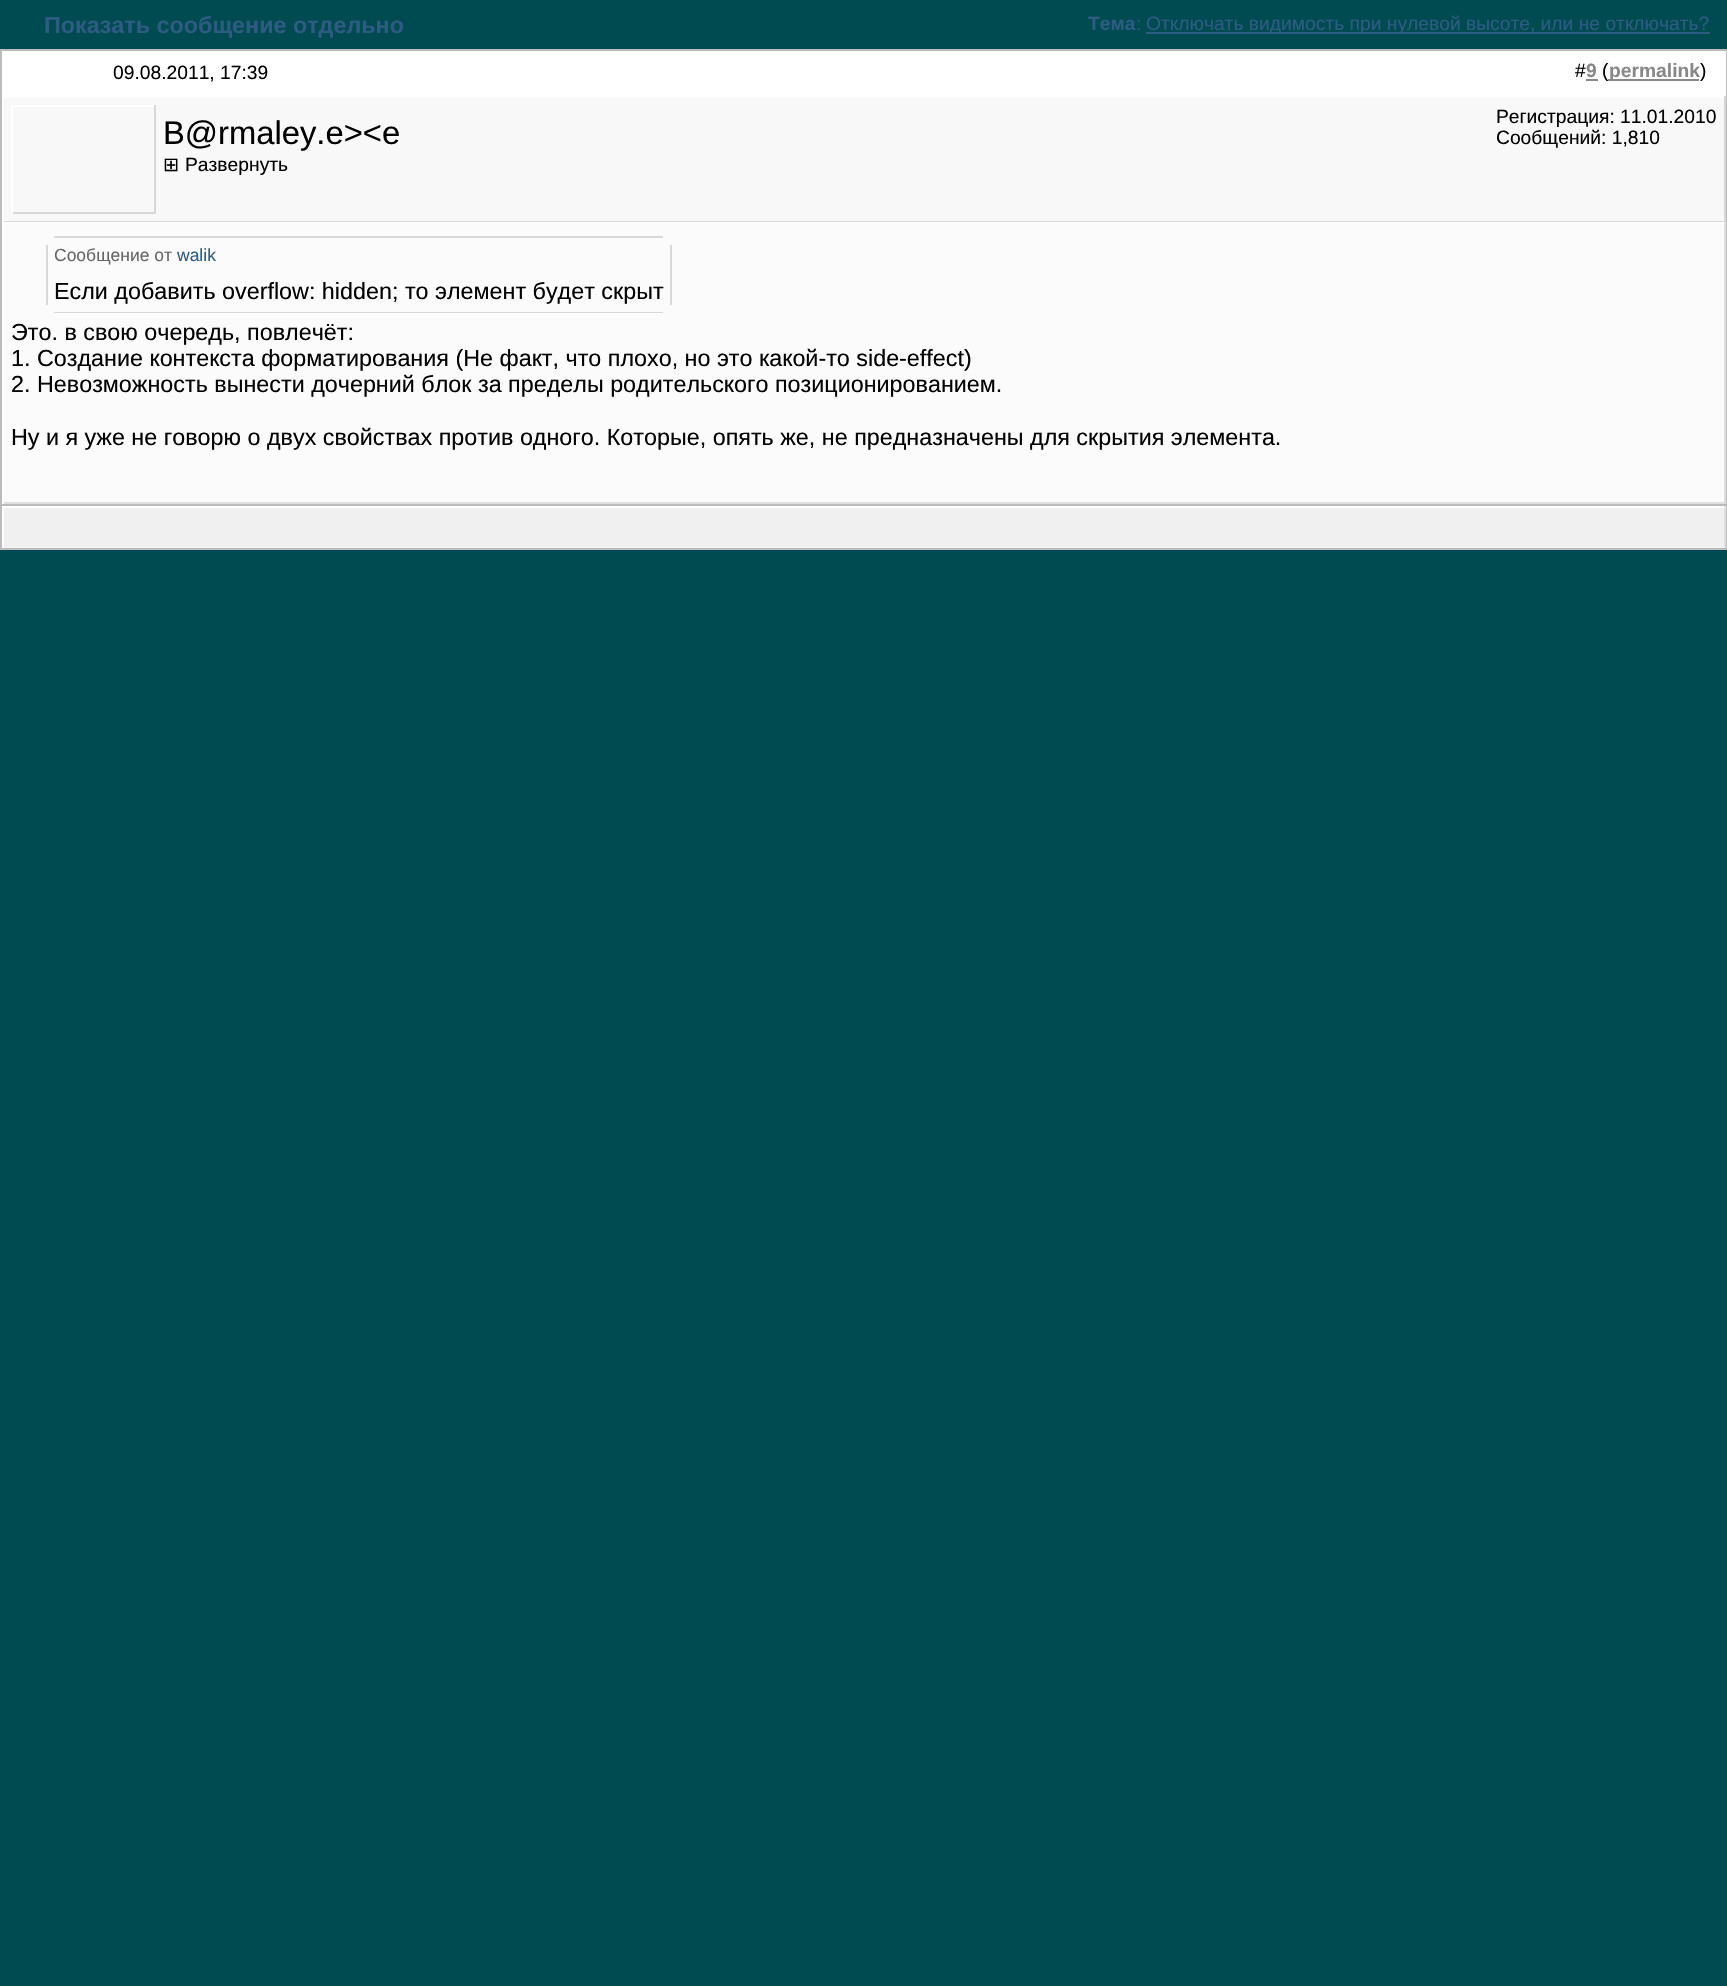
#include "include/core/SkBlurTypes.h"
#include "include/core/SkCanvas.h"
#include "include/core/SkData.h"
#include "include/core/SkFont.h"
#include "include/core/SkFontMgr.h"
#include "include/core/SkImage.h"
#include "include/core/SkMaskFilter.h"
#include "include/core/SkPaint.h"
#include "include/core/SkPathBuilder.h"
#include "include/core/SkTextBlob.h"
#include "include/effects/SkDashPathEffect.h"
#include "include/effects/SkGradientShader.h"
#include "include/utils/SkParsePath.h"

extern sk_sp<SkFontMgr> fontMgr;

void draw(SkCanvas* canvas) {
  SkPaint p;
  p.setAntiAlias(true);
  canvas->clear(SkColorSetRGB(0, 75, 82));
  p.setColor(SkColorSetRGB(46, 91, 130));
  canvas->drawRect(SkRect::MakeLTRB(1146, 32, 1710, 34), p);
  p.setStyle(SkPaint::kStroke_Style);
  p.setStrokeWidth(2);
  p.setColor(SkColorSetRGB(187, 187, 187));
  canvas->drawRect(SkRect::MakeLTRB(1, 50, 1726, 505), p);
  p.setStyle(SkPaint::kFill_Style);
  p.setColor(SK_ColorWHITE);
  canvas->drawRect(SkRect::MakeLTRB(2, 51, 1726, 98), p);
  p.setColor(SkColorSetRGB(136, 136, 136));
  canvas->drawRect(SkRect::MakeLTRB(1586, 79, 1598, 81), p);
  p.setColor(SkColorSetRGB(248, 248, 248));
  canvas->drawRect(SkRect::MakeLTRB(4, 98, 1724, 221), p);
  p.setColor(SkColorSetRGB(215, 215, 215));
  canvas->drawRect(SkRect::MakeLTRB(1724, 96, 1726, 222), p);
  canvas->drawRect(SkRect::MakeLTRB(2, 221, 1726, 222), p);
  p.setColor(SK_ColorWHITE);
  canvas->drawRect(SkRect::MakeLTRB(2, 96, 4, 222), p);
  canvas->drawRect(SkRect::MakeLTRB(11, 105, 156, 107), p);
  p.setColor(SkColorSetRGB(215, 215, 215));
  canvas->drawRect(SkRect::MakeLTRB(154, 105, 156, 214), p);
  canvas->drawRect(SkRect::MakeLTRB(11, 212, 156, 214), p);
  p.setColor(SK_ColorWHITE);
  canvas->drawRect(SkRect::MakeLTRB(11, 105, 13, 214), p);
  p.setColor(SkColorSetRGB(251, 251, 251));
  canvas->drawRect(SkRect::MakeLTRB(4, 224, 1724, 502), p);
  p.setColor(SK_ColorWHITE);
  canvas->drawRect(SkRect::MakeLTRB(2, 222, 1726, 224), p);
  p.setColor(SkColorSetRGB(224, 224, 224));
  canvas->drawRect(SkRect::MakeLTRB(1724, 222, 1726, 504), p);
  canvas->drawRect(SkRect::MakeLTRB(2, 502, 1726, 504), p);
  p.setColor(SK_ColorWHITE);
  canvas->drawRect(SkRect::MakeLTRB(2, 222, 4, 504), p);
  p.setColor(SkColorSetRGB(216, 216, 216));
  canvas->drawRect(SkRect::MakeLTRB(54, 236, 663, 238), p);
  canvas->drawRect(SkRect::MakeLTRB(670, 245, 672, 305), p);
  canvas->drawRect(SkRect::MakeLTRB(46, 245, 48, 305), p);
  canvas->drawRect(SkRect::MakeLTRB(54, 312, 663, 313), p);
  p.setColor(SkColorSetRGB(187, 187, 187));
  canvas->drawRect(SkRect::MakeLTRB(1726, 506, 1727, 550), p);
  canvas->drawRect(SkRect::MakeLTRB(0, 548, 1727, 550), p);
  canvas->drawRect(SkRect::MakeLTRB(0, 506, 2, 550), p);
  p.setColor(SkColorSetRGB(240, 240, 240));
  canvas->drawRect(SkRect::MakeLTRB(4, 508, 1724, 548), p);
  p.setColor(SK_ColorWHITE);
  canvas->drawRect(SkRect::MakeLTRB(2, 506, 1726, 508), p);
  p.setColor(SkColorSetRGB(224, 224, 224));
  canvas->drawRect(SkRect::MakeLTRB(1724, 506, 1726, 548), p);
  p.setColor(SK_ColorWHITE);
  canvas->drawRect(SkRect::MakeLTRB(2, 506, 4, 548), p);
  SkFont font1(fontMgr->matchFamilyStyle("Liberation Sans", SkFontStyle::Bold()), 23.33f);
  font1.setSubpixel(true);
  p.setColor(SkColorSetRGB(46, 91, 130));
  canvas->drawString("Показать сообщение отдельно", 44, 33, font1, p);
  SkFont font2(fontMgr->matchFamilyStyle("Liberation Sans", SkFontStyle::Bold()), 19.25f);
  font2.setSubpixel(true);
  canvas->drawString("Тема", 1088, 30, font2, p);
  SkFont font3(fontMgr->matchFamilyStyle("Liberation Sans", SkFontStyle::Normal()), 19.25f);
  font3.setSubpixel(true);
  canvas->drawString(":", 1136, 30, font3, p);
  canvas->drawString("Отключать видимость при нулевой высоте, или не отключать?", 1146, 30, font3, p);
  p.setColor(SK_ColorBLACK);
  canvas->drawString("09.08.2011, 17:39", 113, 79, font3, p);
  canvas->drawString("#", 1575, 77, font3, p);
  p.setColor(SkColorSetRGB(136, 136, 136));
  canvas->drawString("9", 1586, 77, font2, p);
  p.setColor(SK_ColorBLACK);
  canvas->drawString("(", 1602, 77, font3, p);
  p.setColor(SkColorSetRGB(136, 136, 136));
  canvas->drawRect(SkRect::MakeLTRB(1608, 79, 1699, 81), p);
  canvas->drawString("permalink", 1609, 77, font2, p);
  p.setColor(SK_ColorBLACK);
  canvas->drawString(")", 1700, 77, font3, p);
  SkFont font4(fontMgr->matchFamilyStyle("Liberation Sans", SkFontStyle::Normal()), 32.75f);
  font4.setSubpixel(true);
  canvas->drawString("B@rmaley.e><e", 163, 144, font4, p);
  SkFont font5(fontMgr->matchFamilyStyle("DejaVu Sans", SkFontStyle::Normal()), 19.25f);
  font5.setSubpixel(true);
  canvas->drawString("⊞", 163, 171, font5, p);
  canvas->drawString("Развернуть", 185, 171, font3, p);
  canvas->drawString("Регистрация: 11.01.2010", 1496, 123, font3, p);
  canvas->drawString("Сообщений: 1,810", 1496, 144, font3, p);
  SkFont font6(fontMgr->matchFamilyStyle("Liberation Sans", SkFontStyle::Normal()), 17.5f);
  font6.setSubpixel(true);
  p.setColor(SkColorSetRGB(102, 102, 102));
  canvas->drawString("Сообщение от", 54, 261, font6, p);
  p.setColor(SkColorSetRGB(46, 91, 130));
  canvas->drawString("walik", 177, 261, font6, p);
  SkFont font7(fontMgr->matchFamilyStyle("Liberation Sans", SkFontStyle::Normal()), 23.33f);
  font7.setSubpixel(true);
  p.setColor(SK_ColorBLACK);
  canvas->drawString("Если добавить overflow: hidden; то элемент будет скрыт", 54, 299, font7, p);
  canvas->drawString("Это. в свою очередь, повлечёт:", 11, 340, font7, p);
  canvas->drawString("1. Создание контекста форматирования (Не факт, что плохо, но это какой-то side-effect)", 11, 366, font7, p);
  canvas->drawString("2. Невозможность вынести дочерний блок за пределы родительского позиционированием.", 11, 392, font7, p);
  canvas->drawString("Ну и я уже не говорю о двух свойствах против одного. Которые, опять же, не предназначены для скрытия элемента.", 11, 445, font7, p);
}
